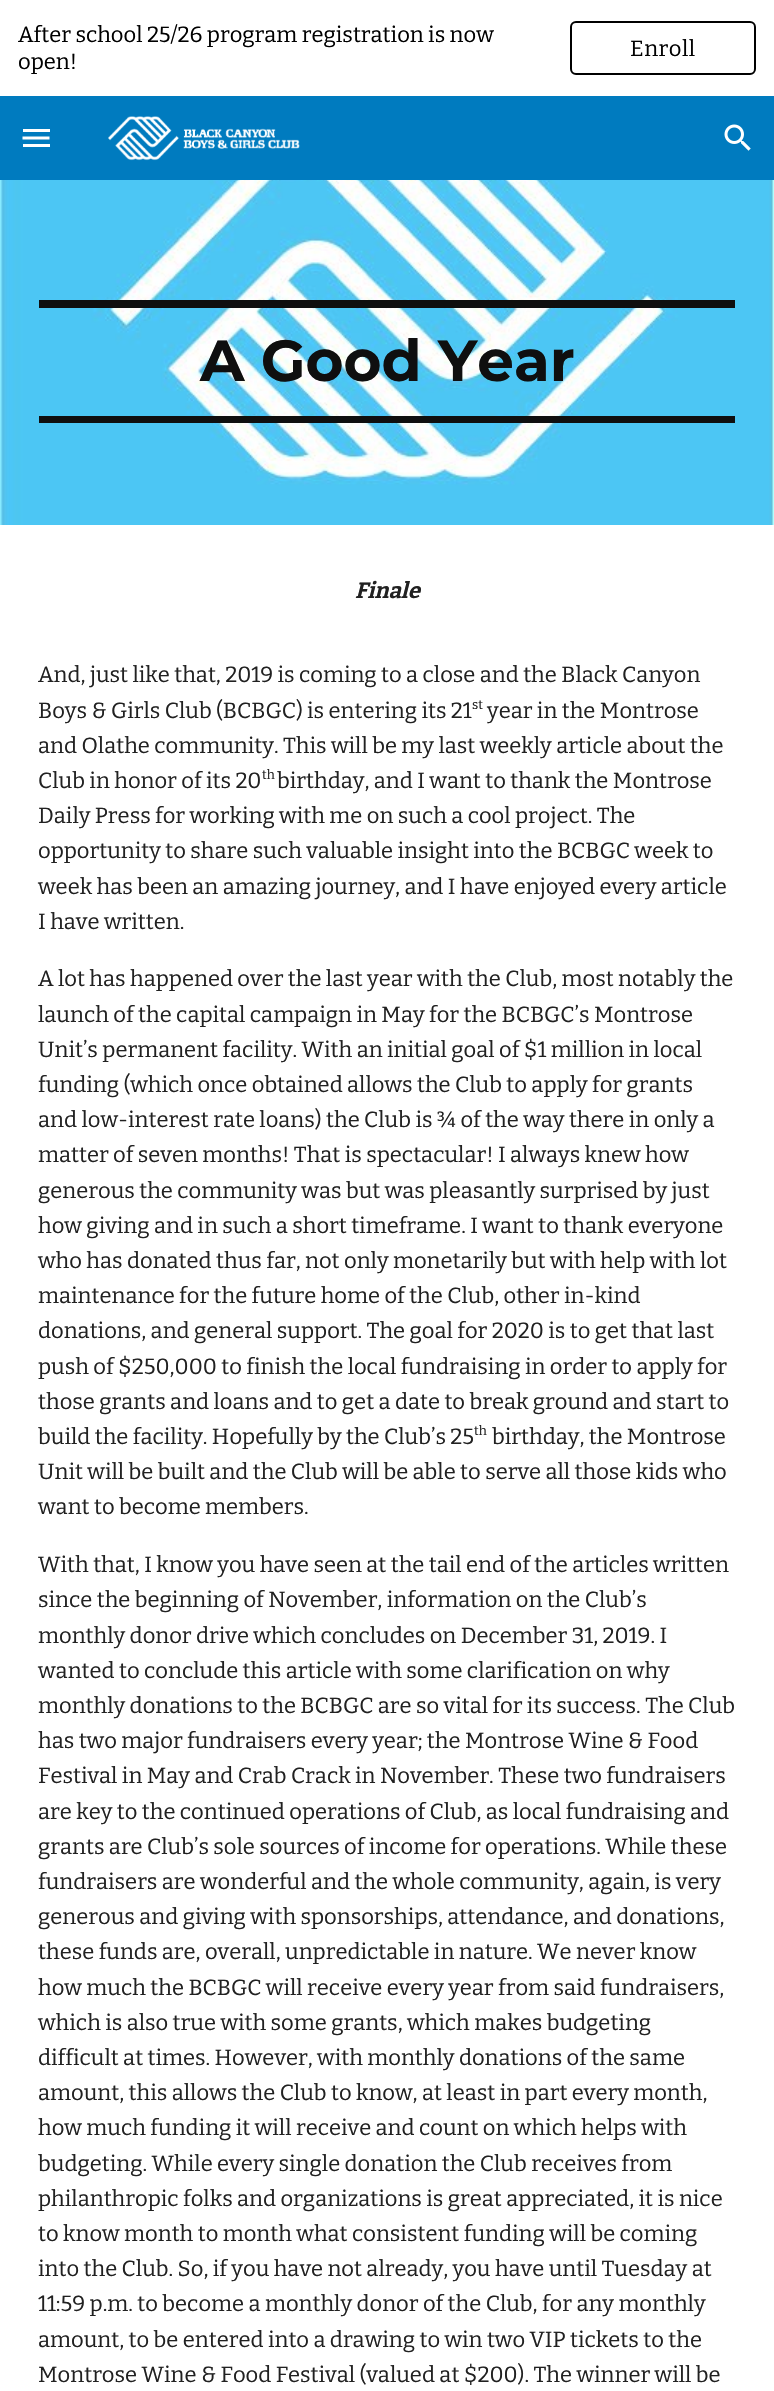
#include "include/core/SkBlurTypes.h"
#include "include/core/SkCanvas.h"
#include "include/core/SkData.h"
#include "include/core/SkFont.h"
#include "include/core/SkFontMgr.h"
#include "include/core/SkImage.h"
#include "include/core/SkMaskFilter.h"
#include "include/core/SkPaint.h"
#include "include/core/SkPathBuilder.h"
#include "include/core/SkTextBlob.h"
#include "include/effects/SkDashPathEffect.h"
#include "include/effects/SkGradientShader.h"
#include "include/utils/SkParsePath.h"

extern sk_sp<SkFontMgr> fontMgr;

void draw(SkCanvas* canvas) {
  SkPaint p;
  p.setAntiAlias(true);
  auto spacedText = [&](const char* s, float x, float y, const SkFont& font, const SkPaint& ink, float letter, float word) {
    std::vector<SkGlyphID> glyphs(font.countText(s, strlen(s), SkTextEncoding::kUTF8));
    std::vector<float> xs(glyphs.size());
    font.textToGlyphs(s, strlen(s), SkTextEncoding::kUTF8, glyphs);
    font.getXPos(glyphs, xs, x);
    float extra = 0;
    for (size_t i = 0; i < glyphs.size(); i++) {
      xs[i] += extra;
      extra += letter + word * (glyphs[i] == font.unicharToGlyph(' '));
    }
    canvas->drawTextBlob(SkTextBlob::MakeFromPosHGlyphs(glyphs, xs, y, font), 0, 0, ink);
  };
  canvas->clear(SK_ColorWHITE);
  p.setStyle(SkPaint::kStroke_Style);
  p.setStrokeWidth(2);
  p.setColor(SK_ColorBLACK);
  canvas->drawRoundRect(SkRect::MakeLTRB(571, 22, 755, 74), 5, 5, p);
  p.setStyle(SkPaint::kFill_Style);
  p.setColor(SkColorSetRGB(0, 123, 191));
  canvas->drawRect(SkRect::MakeLTRB(0, 96, 774, 180), p);
  canvas->drawImageRect(SkImages::DeferredFromEncodedData(SkData::MakeFromFileName("images/1.png")), SkRect::MakeLTRB(108, 116, 300, 161), SkSamplingOptions());
  canvas->drawImageRect(SkImages::DeferredFromEncodedData(SkData::MakeFromFileName("images/2.png")), SkRect::MakeLTRB(724, 124, 751, 151), SkSamplingOptions());
  p.setColor(SK_ColorWHITE);
  canvas->drawRect(SkRect::MakeLTRB(23, 129, 50, 132), p);
  p.setStyle(SkPaint::kStroke_Style);
  p.setStrokeWidth(3);
  canvas->drawPath(SkPathBuilder().moveTo(22.5f, 138).lineTo(49.5f, 138).detach(), p);
  p.setStyle(SkPaint::kFill_Style);
  canvas->drawRect(SkRect::MakeLTRB(23, 144, 50, 147), p);
  canvas->drawImageRect(SkImages::DeferredFromEncodedData(SkData::MakeFromFileName("images/3.png")), SkRect::MakeLTRB(0, 180, 774, 525), SkSamplingOptions());
  p.setColor(SkColorSetRGB(15, 15, 15));
  canvas->drawRect(SkRect::MakeLTRB(39, 300, 735, 308), p);
  canvas->drawRect(SkRect::MakeLTRB(39, 416, 735, 423), p);
  SkFont font1(fontMgr->matchFamilyStyle("Bitter", SkFontStyle::Normal()), 22);
  font1.setSubpixel(true);
  p.setColor(SK_ColorBLACK);
  canvas->drawString("After school 25/26 program registration is now", 18, 42, font1, p);
  canvas->drawString("open!", 18, 69, font1, p);
  spacedText("Enroll", 630, 56, font1, p, 0.5f, 0);
  SkFont font2(fontMgr->matchFamilyStyle("Montserrat", SkFontStyle::Bold()), 58);
  font2.setSubpixel(true);
  p.setColor(SkColorSetRGB(15, 15, 15));
  canvas->drawString("A Good Year", 200, 381, font2, p);
  SkFont font3(fontMgr->matchFamilyStyle("Bitter", SkFontStyle::BoldItalic()), 22);
  font3.setSubpixel(true);
  p.setColor(SkColorSetRGB(33, 33, 33));
  canvas->drawString("Finale", 355, 598, font3, p);
  canvas->drawString("And, just like that, 2019 is coming to a close and the Black Canyon", 38, 682, font1, p);
  canvas->drawString("Boys & Girls Club (BCBGC) is entering its 21", 38, 718, font1, p);
  SkFont font4(fontMgr->matchFamilyStyle("Bitter", SkFontStyle::Normal()), 13);
  font4.setSubpixel(true);
  canvas->drawString("st", 472, 709, font4, p);
  canvas->drawString("year in the Montrose", 487, 718, font1, p);
  canvas->drawString("and Olathe community. This will be my last weekly article about the", 38, 753, font1, p);
  canvas->drawString("Club in honor of its 20", 38, 788, font1, p);
  canvas->drawString("th", 262, 779, font4, p);
  canvas->drawString("birthday, and I want to thank the Montrose", 277, 788, font1, p);
  canvas->drawString("Daily Press for working with me on such a cool project. The", 38, 823, font1, p);
  canvas->drawString("opportunity to share such valuable insight into the BCBGC week to", 38, 858, font1, p);
  canvas->drawString("week has been an amazing journey, and I have enjoyed every article", 38, 894, font1, p);
  canvas->drawString("I have written.", 38, 929, font1, p);
  canvas->drawString("A lot has happened over the last year with the Club, most notably the", 38, 986, font1, p);
  canvas->drawString("launch of the capital campaign in May for the BCBGC’s Montrose", 38, 1022, font1, p);
  canvas->drawString("Unit’s permanent facility. With an initial goal of $1 million in local", 38, 1057, font1, p);
  canvas->drawString("funding (which once obtained allows the Club to apply for grants", 38, 1092, font1, p);
  canvas->drawString("and low-interest rate loans) the Club is ¾ of the way there in only a", 38, 1127, font1, p);
  canvas->drawString("matter of seven months! That is spectacular! I always knew how", 38, 1162, font1, p);
  canvas->drawString("generous the community was but was pleasantly surprised by just", 38, 1198, font1, p);
  canvas->drawString("how giving and in such a short timeframe. I want to thank everyone", 38, 1233, font1, p);
  canvas->drawString("who has donated thus far, not only monetarily but with help with lot", 38, 1268, font1, p);
  canvas->drawString("maintenance for the future home of the Club, other in-kind", 38, 1303, font1, p);
  canvas->drawString("donations, and general support. The goal for 2020 is to get that last", 38, 1338, font1, p);
  canvas->drawString("push of $250,000 to finish the local fundraising in order to apply for", 38, 1374, font1, p);
  canvas->drawString("those grants and loans and to get a date to break ground and start to", 38, 1409, font1, p);
  canvas->drawString("build the facility. Hopefully by the Club’s 25", 38, 1444, font1, p);
  canvas->drawString("th", 474, 1435, font4, p);
  canvas->drawString("birthday, the Montrose", 492, 1444, font1, p);
  canvas->drawString("Unit will be built and the Club will be able to serve all those kids who", 38, 1479, font1, p);
  canvas->drawString("want to become members.", 38, 1514, font1, p);
  canvas->drawString("With that, I know you have seen at the tail end of the articles written", 38, 1572, font1, p);
  canvas->drawString("since the beginning of November, information on the Club’s", 38, 1607, font1, p);
  canvas->drawString("monthly donor drive which concludes on December 31, 2019. I", 38, 1643, font1, p);
  canvas->drawString("wanted to conclude this article with some clarification on why", 38, 1678, font1, p);
  canvas->drawString("monthly donations to the BCBGC are so vital for its success. The Club", 38, 1713, font1, p);
  canvas->drawString("has two major fundraisers every year; the Montrose Wine & Food", 38, 1748, font1, p);
  canvas->drawString("Festival in May and Crab Crack in November. These two fundraisers", 38, 1783, font1, p);
  canvas->drawString("are key to the continued operations of Club, as local fundraising and", 38, 1819, font1, p);
  canvas->drawString("grants are Club’s sole sources of income for operations. While these", 38, 1854, font1, p);
  canvas->drawString("fundraisers are wonderful and the whole community, again, is very", 38, 1889, font1, p);
  canvas->drawString("generous and giving with sponsorships, attendance, and donations,", 38, 1924, font1, p);
  canvas->drawString("these funds are, overall, unpredictable in nature. We never know", 38, 1959, font1, p);
  canvas->drawString("how much the BCBGC will receive every year from said fundraisers,", 38, 1995, font1, p);
  canvas->drawString("which is also true with some grants, which makes budgeting", 38, 2030, font1, p);
  canvas->drawString("difficult at times. However, with monthly donations of the same", 38, 2065, font1, p);
  canvas->drawString("amount, this allows the Club to know, at least in part every month,", 38, 2100, font1, p);
  canvas->drawString("how much funding it will receive and count on which helps with", 38, 2135, font1, p);
  canvas->drawString("budgeting. While every single donation the Club receives from", 38, 2171, font1, p);
  canvas->drawString("philanthropic folks and organizations is great appreciated, it is nice", 38, 2206, font1, p);
  canvas->drawString("to know month to month what consistent funding will be coming", 38, 2241, font1, p);
  canvas->drawString("into the Club. So, if you have not already, you have until Tuesday at", 38, 2276, font1, p);
  canvas->drawString("11:59 p.m. to become a monthly donor of the Club, for any monthly", 38, 2311, font1, p);
  canvas->drawString("amount, to be entered into a drawing to win two VIP tickets to the", 38, 2347, font1, p);
  canvas->drawString("Montrose Wine & Food Festival (valued at $200). The winner will be", 38, 2382, font1, p);
}
